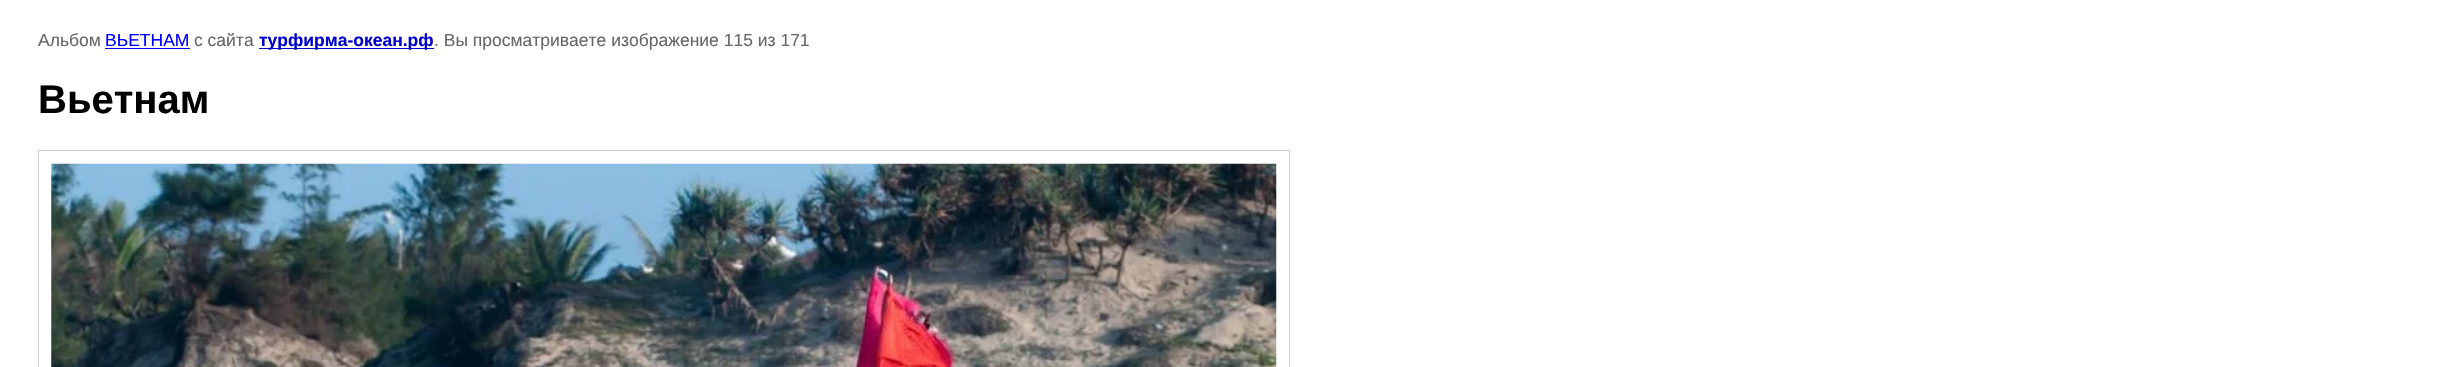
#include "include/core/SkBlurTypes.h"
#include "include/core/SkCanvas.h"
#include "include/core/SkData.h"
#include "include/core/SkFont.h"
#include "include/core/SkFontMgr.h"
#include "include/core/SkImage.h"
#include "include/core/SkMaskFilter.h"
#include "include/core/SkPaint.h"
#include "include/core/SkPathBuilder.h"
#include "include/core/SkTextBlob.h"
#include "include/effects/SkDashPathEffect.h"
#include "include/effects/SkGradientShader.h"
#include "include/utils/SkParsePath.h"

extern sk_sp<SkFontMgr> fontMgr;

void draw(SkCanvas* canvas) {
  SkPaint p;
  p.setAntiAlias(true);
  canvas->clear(SK_ColorWHITE);
  p.setColor(SkColorSetRGB(0, 0, 255));
  canvas->drawRect(SkRect::MakeLTRB(105, 48, 190, 49), p);
  p.setColor(SkColorSetRGB(0, 0, 204));
  canvas->drawRect(SkRect::MakeLTRB(259, 48, 434, 49), p);
  p.setStyle(SkPaint::kStroke_Style);
  p.setStrokeWidth(1);
  p.setColor(SkColorSetRGB(204, 204, 204));
  canvas->drawRect(SkRect::MakeLTRB(38.5f, 150.5f, 1289.5f, 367.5f), p);
  canvas->drawImageRect(SkImages::DeferredFromEncodedData(SkData::MakeFromFileName("images/1.png")), SkRect::MakeLTRB(51, 163, 1277, 367), SkSamplingOptions());
  SkFont font1(fontMgr->matchFamilyStyle("Liberation Sans", SkFontStyle::Normal()), 17.5f);
  font1.setSubpixel(true);
  p.setStyle(SkPaint::kFill_Style);
  p.setColor(SkColorSetRGB(102, 102, 102));
  canvas->drawString("Альбом", 38, 46, font1, p);
  p.setColor(SkColorSetRGB(0, 0, 255));
  canvas->drawString("ВЬЕТНАМ", 105, 46, font1, p);
  p.setColor(SkColorSetRGB(102, 102, 102));
  canvas->drawString("с сайта", 194, 46, font1, p);
  SkFont font2(fontMgr->matchFamilyStyle("Liberation Sans", SkFontStyle::Bold()), 17.5f);
  font2.setSubpixel(true);
  p.setColor(SkColorSetRGB(0, 0, 204));
  canvas->drawString("турфирма-океан.рф", 259, 46, font2, p);
  p.setColor(SkColorSetRGB(102, 102, 102));
  canvas->drawString(". Вы просматриваете изображение 115 из 171", 434, 46, font1, p);
  SkFont font3(fontMgr->matchFamilyStyle("Liberation Sans", SkFontStyle::Bold()), 40);
  font3.setSubpixel(true);
  p.setColor(SK_ColorBLACK);
  canvas->drawString("Вьетнам", 38, 113, font3, p);
}
